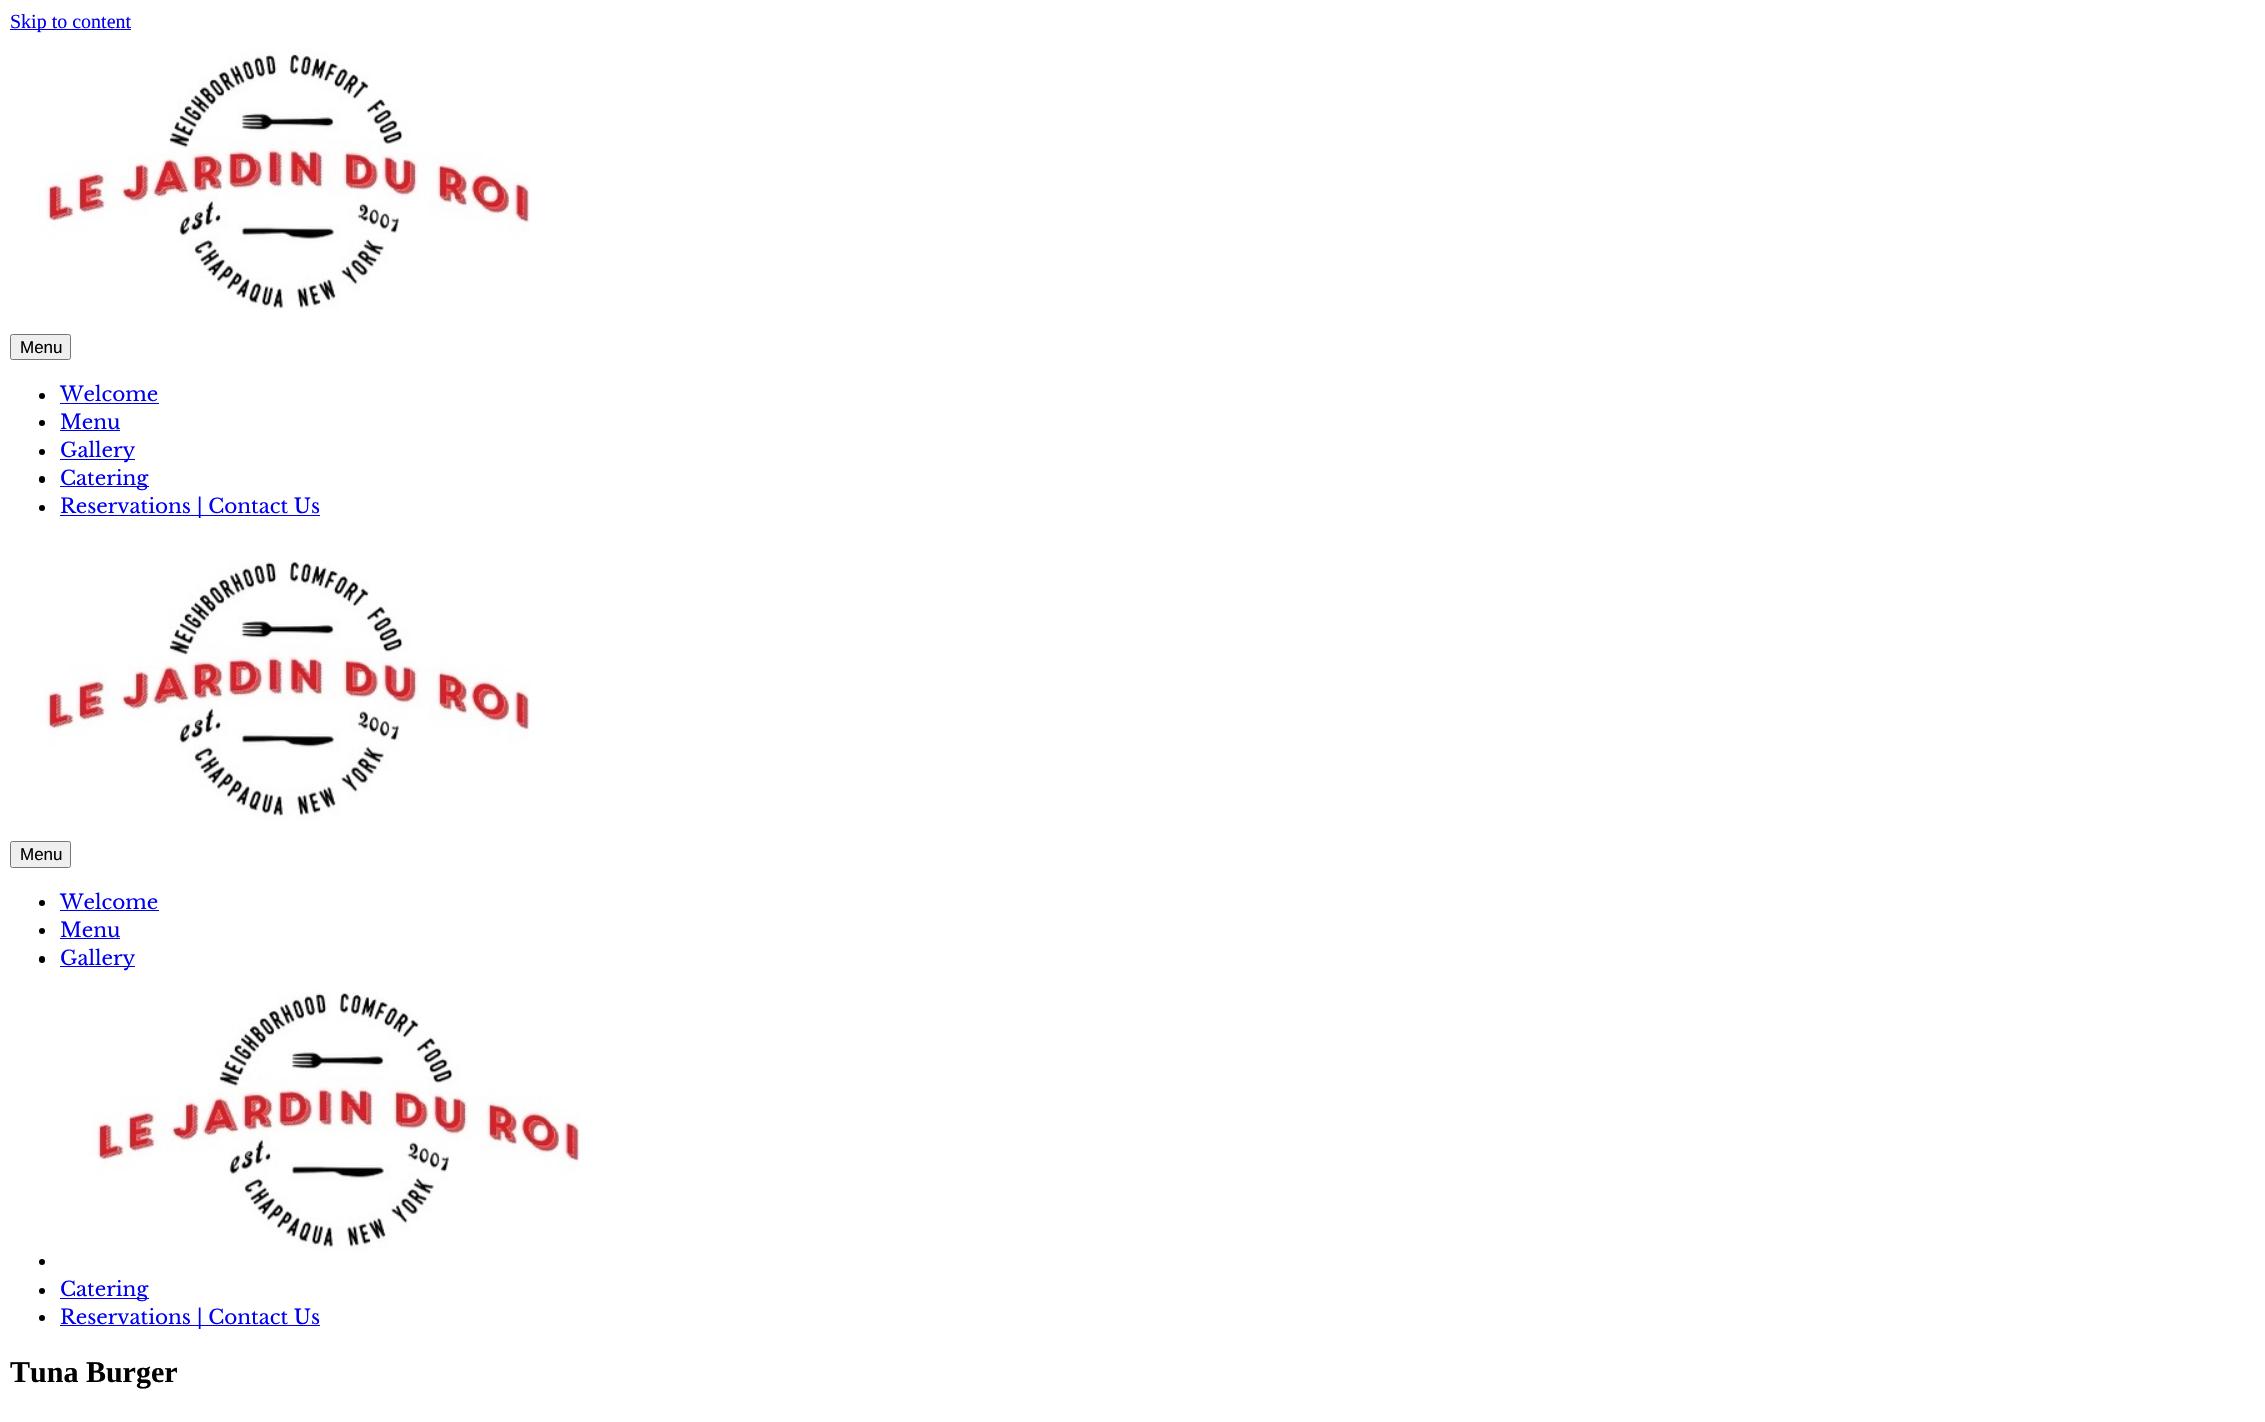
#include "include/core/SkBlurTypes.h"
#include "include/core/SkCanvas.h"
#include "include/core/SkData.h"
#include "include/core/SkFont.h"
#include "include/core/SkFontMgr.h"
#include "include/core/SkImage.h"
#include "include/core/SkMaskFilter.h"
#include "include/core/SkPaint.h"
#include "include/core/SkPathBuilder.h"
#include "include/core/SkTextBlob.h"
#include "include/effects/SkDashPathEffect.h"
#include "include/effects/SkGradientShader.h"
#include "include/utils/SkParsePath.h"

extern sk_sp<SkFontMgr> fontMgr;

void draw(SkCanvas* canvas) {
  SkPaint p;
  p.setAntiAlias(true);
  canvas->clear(SK_ColorWHITE);
  p.setColor(SkColorSetRGB(0, 0, 238));
  canvas->drawRect(SkRect::MakeLTRB(10, 29, 131, 30), p);
  p.setColor(SkColorSetRGB(239, 239, 239));
  canvas->drawRoundRect(SkRect::MakeLTRB(10.5f, 334.5f, 70.5f, 359.5f), 2, 2, p);
  p.setStyle(SkPaint::kStroke_Style);
  p.setStrokeWidth(1);
  p.setColor(SkColorSetRGB(118, 118, 118));
  canvas->drawRoundRect(SkRect::MakeLTRB(10.5f, 334.5f, 70.5f, 359.5f), 2, 2, p);
  p.setStyle(SkPaint::kFill_Style);
  p.setColor(SK_ColorBLACK);
  canvas->drawCircle(42, 396, 3, p);
  p.setColor(SkColorSetRGB(0, 0, 238));
  canvas->drawRect(SkRect::MakeLTRB(60, 403, 159, 404), p);
  p.setColor(SK_ColorBLACK);
  canvas->drawCircle(42, 423, 3, p);
  p.setColor(SkColorSetRGB(0, 0, 238));
  canvas->drawRect(SkRect::MakeLTRB(60, 430, 120, 431), p);
  p.setColor(SK_ColorBLACK);
  canvas->drawCircle(42, 452, 3, p);
  p.setColor(SkColorSetRGB(0, 0, 238));
  canvas->drawRect(SkRect::MakeLTRB(60, 459, 135, 460), p);
  p.setColor(SK_ColorBLACK);
  canvas->drawRoundRect(SkRect::MakeLTRB(39, 476, 45, 483), 3, 3, p);
  p.setColor(SkColorSetRGB(0, 0, 238));
  canvas->drawRect(SkRect::MakeLTRB(60, 486, 149, 487), p);
  p.setColor(SK_ColorBLACK);
  canvas->drawCircle(42, 508, 3, p);
  p.setColor(SkColorSetRGB(0, 0, 238));
  canvas->drawRect(SkRect::MakeLTRB(60, 515, 320, 516), p);
  canvas->drawImageRect(SkImages::DeferredFromEncodedData(SkData::MakeFromFileName("images/2.png")), SkRect::MakeLTRB(40, 560, 530, 820), SkSamplingOptions());
  p.setColor(SkColorSetRGB(239, 239, 239));
  canvas->drawRoundRect(SkRect::MakeLTRB(10.5f, 841.5f, 70.5f, 867.5f), 2, 2, p);
  p.setStyle(SkPaint::kStroke_Style);
  p.setColor(SkColorSetRGB(118, 118, 118));
  canvas->drawRoundRect(SkRect::MakeLTRB(10.5f, 841.5f, 70.5f, 867.5f), 2, 2, p);
  p.setStyle(SkPaint::kFill_Style);
  p.setColor(SK_ColorBLACK);
  canvas->drawCircle(42, 903, 3, p);
  p.setColor(SkColorSetRGB(0, 0, 238));
  canvas->drawRect(SkRect::MakeLTRB(60, 910, 159, 911), p);
  p.setColor(SK_ColorBLACK);
  canvas->drawCircle(42, 931, 3, p);
  p.setColor(SkColorSetRGB(0, 0, 238));
  canvas->drawRect(SkRect::MakeLTRB(60, 938, 120, 939), p);
  p.setColor(SK_ColorBLACK);
  canvas->drawRoundRect(SkRect::MakeLTRB(39, 956, 45, 963), 3, 3, p);
  p.setColor(SkColorSetRGB(0, 0, 238));
  canvas->drawRect(SkRect::MakeLTRB(60, 966, 135, 967), p);
  canvas->drawImageRect(SkImages::DeferredFromEncodedData(SkData::MakeFromFileName("images/3.png")), SkRect::MakeLTRB(90, 991, 580, 1251), SkSamplingOptions());
  p.setColor(SK_ColorBLACK);
  canvas->drawCircle(42, 1262, 3, p);
  canvas->drawCircle(42, 1291, 3, p);
  p.setColor(SkColorSetRGB(0, 0, 238));
  canvas->drawRect(SkRect::MakeLTRB(60, 1298, 149, 1299), p);
  p.setColor(SK_ColorBLACK);
  canvas->drawCircle(42, 1318, 3, p);
  p.setColor(SkColorSetRGB(0, 0, 238));
  canvas->drawRect(SkRect::MakeLTRB(60, 1325, 320, 1326), p);
  SkFont font1(fontMgr->matchFamilyStyle("Liberation Serif", SkFontStyle::Normal()), 20);
  font1.setSubpixel(true);
  canvas->drawString("Skip to content", 10, 28, font1, p);
  canvas->drawImageRect(SkImages::DeferredFromEncodedData(SkData::MakeFromFileName("images/1.png")), SkRect::MakeLTRB(37, 32, 530, 309), SkSamplingOptions());
  SkFont font2(fontMgr->matchFamilyStyle("Liberation Sans", SkFontStyle::Normal()), 17);
  font2.setSubpixel(true);
  p.setColor(SK_ColorBLACK);
  canvas->drawString("Menu", 20, 353, font2, p);
  SkFont font3(fontMgr->matchFamilyStyle("Libre Baskerville", SkFontStyle::Normal()), 20);
  font3.setSubpixel(true);
  p.setColor(SkColorSetRGB(0, 0, 238));
  canvas->drawString("Welcome", 60, 401, font3, p);
  canvas->drawString("Menu", 60, 429, font3, p);
  canvas->drawString("Gallery", 60, 457, font3, p);
  canvas->drawString("Catering", 60, 485, font3, p);
  canvas->drawString("Reservations | Contact Us", 60, 513, font3, p);
  p.setColor(SK_ColorBLACK);
  canvas->drawString("Menu", 20, 860, font2, p);
  p.setColor(SkColorSetRGB(0, 0, 238));
  canvas->drawString("Welcome", 60, 909, font3, p);
  canvas->drawString("Menu", 60, 937, font3, p);
  canvas->drawString("Gallery", 60, 965, font3, p);
  canvas->drawString("Catering", 60, 1296, font3, p);
  canvas->drawString("Reservations | Contact Us", 60, 1324, font3, p);
  SkFont font4(fontMgr->matchFamilyStyle("Liberation Serif", SkFontStyle::Bold()), 30);
  font4.setSubpixel(true);
  p.setColor(SK_ColorBLACK);
  canvas->drawString("Tuna Burger", 10, 1382, font4, p);
}
